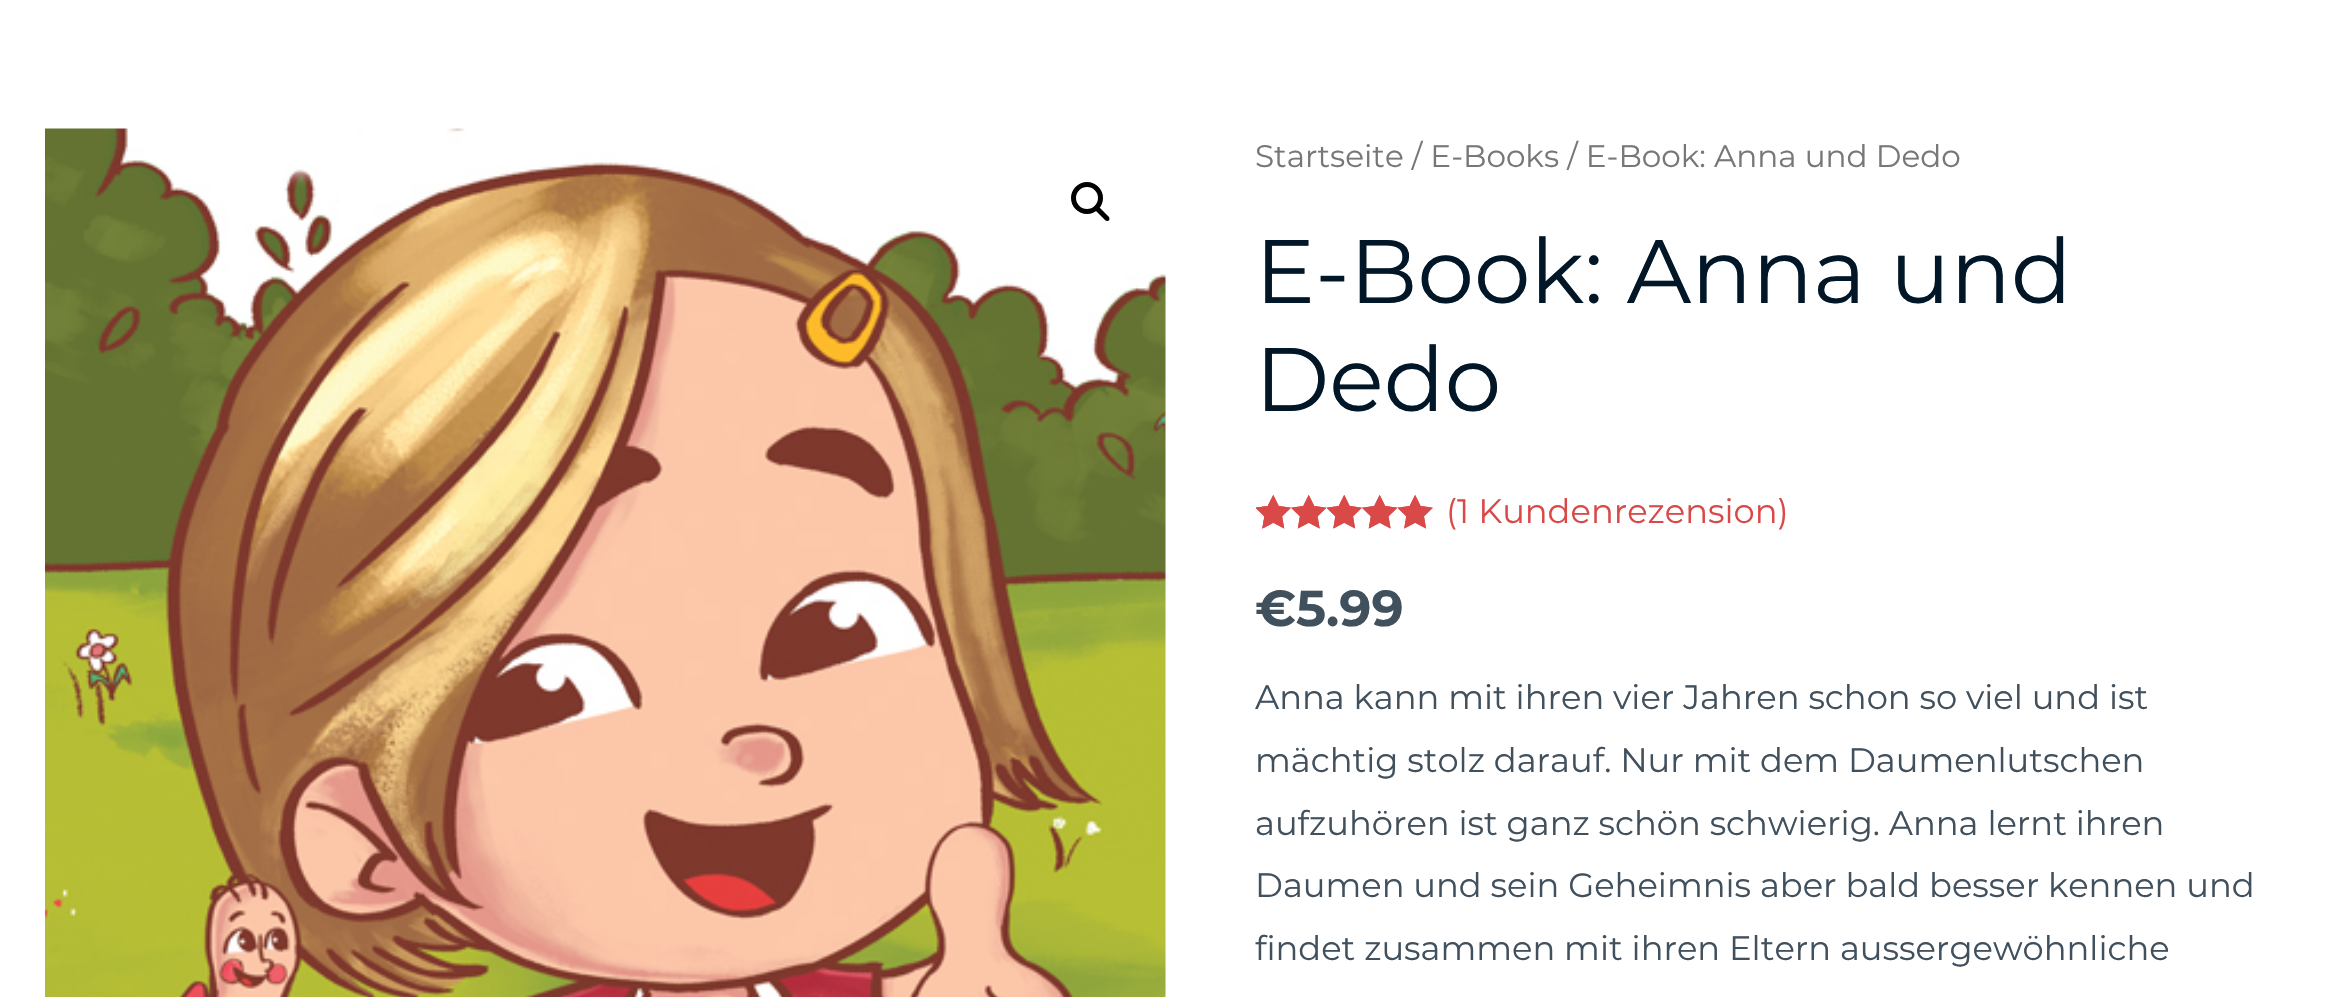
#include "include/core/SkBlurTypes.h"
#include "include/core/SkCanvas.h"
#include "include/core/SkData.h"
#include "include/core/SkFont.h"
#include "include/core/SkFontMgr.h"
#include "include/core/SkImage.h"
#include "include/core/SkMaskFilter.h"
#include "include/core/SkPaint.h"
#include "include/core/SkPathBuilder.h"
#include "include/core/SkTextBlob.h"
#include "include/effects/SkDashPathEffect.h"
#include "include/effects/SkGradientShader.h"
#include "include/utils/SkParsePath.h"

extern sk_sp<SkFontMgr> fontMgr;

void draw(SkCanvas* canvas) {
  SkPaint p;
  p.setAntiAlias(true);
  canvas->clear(SK_ColorWHITE);
  canvas->drawImageRect(SkImages::DeferredFromEncodedData(SkData::MakeFromFileName("images/1.png")), SkRect::MakeLTRB(45, 128, 1166, 997), SkSamplingOptions());
  p.setStyle(SkPaint::kStroke_Style);
  p.setStrokeWidth(5);
  p.setColor(SK_ColorBLACK);
  canvas->drawCircle(1087, 198, 13.5f, p);
  p.setStyle(SkPaint::kFill_Style);
  canvas->drawPath(SkPathBuilder().moveTo(1096, 207.5f).cubicTo(1097, 206.5f, 1098.5f, 206.5f, 1099.5f, 207.5f).lineTo(1109, 217).cubicTo(1109.5f, 218, 1109.5f, 219.5f, 1109, 220.5f).cubicTo(1108, 221, 1106.5f, 221, 1105.5f, 220.5f).lineTo(1096, 211).cubicTo(1095.5f, 210, 1095.5f, 208.5f, 1096, 207.5f).close().detach(), p);
  canvas->drawImageRect(SkImages::DeferredFromEncodedData(SkData::MakeFromFileName("images/2.png")), SkRect::MakeLTRB(1256, 495, 1433, 529), SkSamplingOptions());
  canvas->drawImageRect(SkImages::DeferredFromEncodedData(SkData::MakeFromFileName("images/3.png")), SkRect::MakeLTRB(1256, 495, 1433, 529), SkSamplingOptions());
  canvas->drawImageRect(SkImages::DeferredFromEncodedData(SkData::MakeFromFileName("images/4.png")), SkRect::MakeLTRB(1256, 499, 1271, 529), SkSamplingOptions());
  SkFont font1(fontMgr->matchFamilyStyle("Montserrat", SkFontStyle::Normal()), 31.05f);
  font1.setSubpixel(true);
  p.setColor(SkColorSetRGB(119, 119, 119));
  canvas->drawString("Startseite / E-Books / E-Book: Anna und Dedo", 1255, 167, font1, p);
  SkFont font2(fontMgr->matchFamilyStyle("Montserrat", SkFontStyle::Normal()), 90);
  font2.setSubpixel(true);
  p.setColor(SkColorSetRGB(1, 22, 39));
  canvas->drawString("E-Book: Anna und", 1255, 303, font2, p);
  canvas->drawString("Dedo", 1255, 411, font2, p);
  SkFont font3(fontMgr->matchFamilyStyle("Montserrat", SkFontStyle::Normal()), 33.75f);
  font3.setSubpixel(true);
  p.setColor(SkColorSetRGB(217, 73, 72));
  canvas->drawString("(1 Kundenrezension)", 1446, 523, font3, p);
  SkFont font4(fontMgr->matchFamilyStyle("Montserrat", SkFontStyle::Bold()), 50.5f);
  font4.setSubpixel(true);
  p.setColor(SkColorSetRGB(65, 80, 93));
  canvas->drawString("€5.99", 1255, 626, font4, p);
  canvas->drawString("Anna kann mit ihren vier Jahren schon so viel und ist", 1255, 709, font3, p);
  canvas->drawString("mächtig stolz darauf. Nur mit dem Daumenlutschen", 1255, 772, font3, p);
  canvas->drawString("aufzuhören ist ganz schön schwierig. Anna lernt ihren", 1255, 835, font3, p);
  canvas->drawString("Daumen und sein Geheimnis aber bald besser kennen und", 1255, 897, font3, p);
  canvas->drawString("findet zusammen mit ihren Eltern aussergewöhnliche", 1255, 960, font3, p);
}
